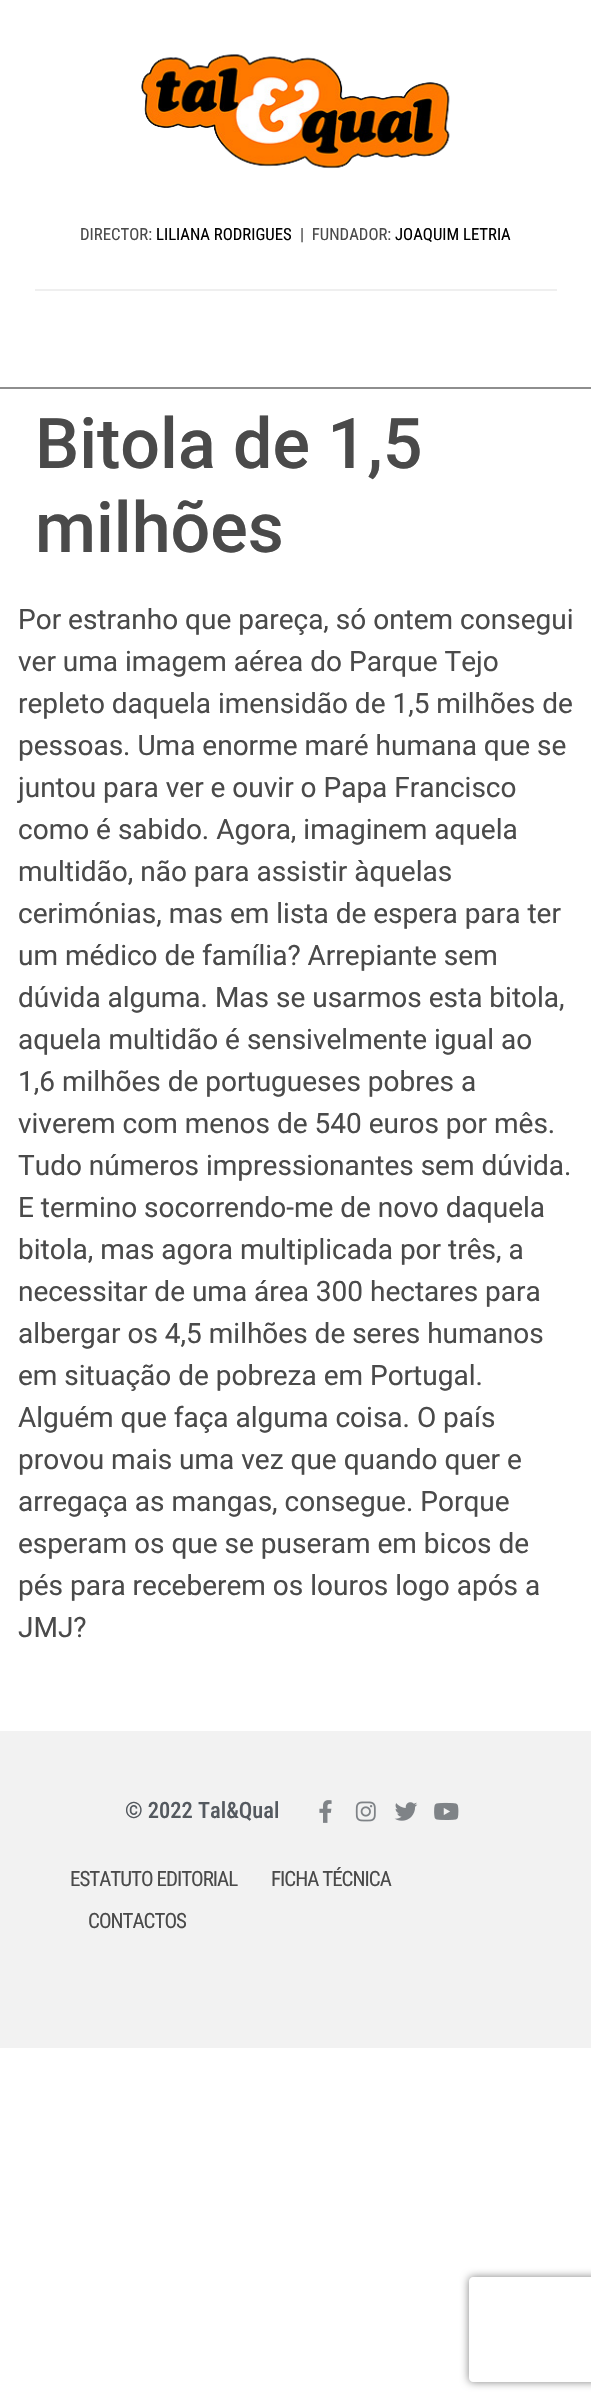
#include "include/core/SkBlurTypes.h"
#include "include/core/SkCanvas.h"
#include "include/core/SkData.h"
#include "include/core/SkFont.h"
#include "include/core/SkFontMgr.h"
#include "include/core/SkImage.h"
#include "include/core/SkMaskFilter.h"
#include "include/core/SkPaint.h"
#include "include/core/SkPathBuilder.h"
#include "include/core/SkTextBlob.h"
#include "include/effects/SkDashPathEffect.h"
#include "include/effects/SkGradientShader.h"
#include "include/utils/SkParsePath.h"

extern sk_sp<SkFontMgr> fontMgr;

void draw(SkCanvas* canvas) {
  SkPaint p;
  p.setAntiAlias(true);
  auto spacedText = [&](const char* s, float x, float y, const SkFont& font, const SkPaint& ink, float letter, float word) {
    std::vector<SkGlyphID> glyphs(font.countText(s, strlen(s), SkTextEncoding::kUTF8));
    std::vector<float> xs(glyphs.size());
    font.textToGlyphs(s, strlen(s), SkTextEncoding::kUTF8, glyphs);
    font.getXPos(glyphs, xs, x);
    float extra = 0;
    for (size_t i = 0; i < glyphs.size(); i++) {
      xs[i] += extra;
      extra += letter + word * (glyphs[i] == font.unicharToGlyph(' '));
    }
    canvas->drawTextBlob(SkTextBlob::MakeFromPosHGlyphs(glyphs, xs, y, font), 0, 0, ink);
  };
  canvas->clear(SK_ColorWHITE);
  p.setColor(SkColorSetRGB(239, 239, 239));
  canvas->drawRect(SkRect::MakeLTRB(35, 289, 557, 291), p);
  canvas->drawImageRect(SkImages::DeferredFromEncodedData(SkData::MakeFromFileName("images/1.png")), SkRect::MakeLTRB(141, 54, 450, 169), SkSamplingOptions());
  p.setColor(SkColorSetRGB(142, 142, 142));
  canvas->drawRect(SkRect::MakeLTRB(0, 387, 591, 389), p);
  p.setColor(SkColorSetRGB(242, 242, 242));
  canvas->drawRect(SkRect::MakeLTRB(0, 1731, 591, 2048), p);
  canvas->drawImageRect(SkImages::DeferredFromEncodedData(SkData::MakeFromFileName("images/2.png")), SkRect::MakeLTRB(319, 1800, 332, 1823), SkSamplingOptions());
  canvas->drawImageRect(SkImages::DeferredFromEncodedData(SkData::MakeFromFileName("images/3.png")), SkRect::MakeLTRB(355, 1801, 376, 1822), SkSamplingOptions());
  canvas->drawImageRect(SkImages::DeferredFromEncodedData(SkData::MakeFromFileName("images/4.png")), SkRect::MakeLTRB(394, 1802, 418, 1821), SkSamplingOptions());
  canvas->drawImageRect(SkImages::DeferredFromEncodedData(SkData::MakeFromFileName("images/5.png")), SkRect::MakeLTRB(434, 1802, 459, 1820), SkSamplingOptions());
  canvas->save();
  canvas->clipPath(SkPathBuilder(SkPathFillType::kEvenOdd).moveTo(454, 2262).lineTo(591, 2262).lineTo(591, 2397).lineTo(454, 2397).close().moveTo(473, 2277).lineTo(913, 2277).cubicTo(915, 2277, 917, 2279, 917, 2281).lineTo(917, 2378).cubicTo(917, 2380, 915, 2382, 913, 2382).lineTo(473, 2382).cubicTo(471, 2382, 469, 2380, 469, 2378).lineTo(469, 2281).cubicTo(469, 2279, 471, 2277, 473, 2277).close().detach(), true);
  p.setColor(SkColorSetRGB(128, 128, 128));
  p.setMaskFilter(SkMaskFilter::MakeBlur(kNormal_SkBlurStyle, 4.5f));
  canvas->drawRoundRect(SkRect::MakeLTRB(469, 2277, 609, 2382), 4, 4, p);
  p.setMaskFilter(nullptr);
  canvas->restore();
  SkFont font1(fontMgr->matchFamilyStyle("Roboto Condensed", SkFontStyle::Normal()), 16.75f);
  font1.setSubpixel(true);
  p.setColor(SkColorSetRGB(74, 74, 74));
  canvas->drawString("DIRECTOR:", 80, 240, font1, p);
  p.setColor(SK_ColorBLACK);
  canvas->drawString("LILIANA RODRIGUES", 156, 240, font1, p);
  p.setColor(SkColorSetRGB(74, 74, 74));
  canvas->drawString("|  FUNDADOR:", 300, 240, font1, p);
  p.setColor(SK_ColorBLACK);
  canvas->drawString("JOAQUIM LETRIA", 395, 240, font1, p);
  SkFont font2(fontMgr->matchFamilyStyle("Roboto", SkFontStyle(500, SkFontStyle::kNormal_Width, SkFontStyle::kUpright_Slant)), 70);
  font2.setSubpixel(true);
  p.setColor(SkColorSetRGB(74, 74, 74));
  canvas->drawString("Bitola de 1,5", 35, 468, font2, p);
  canvas->drawString("milhões", 35, 552, font2, p);
  SkFont font3(fontMgr->matchFamilyStyle("Roboto", SkFontStyle::Normal()), 28);
  font3.setSubpixel(true);
  canvas->drawString("Por estranho que pareça, só ontem consegui", 18, 629, font3, p);
  canvas->drawString("ver uma imagem aérea do Parque Tejo", 18, 671, font3, p);
  canvas->drawString("repleto daquela imensidão de 1,5 milhões de", 18, 713, font3, p);
  canvas->drawString("pessoas. Uma enorme maré humana que se", 18, 755, font3, p);
  canvas->drawString("juntou para ver e ouvir o Papa Francisco", 18, 797, font3, p);
  canvas->drawString("como é sabido. Agora, imaginem aquela", 18, 839, font3, p);
  canvas->drawString("multidão, não para assistir àquelas", 18, 881, font3, p);
  canvas->drawString("cerimónias, mas em lista de espera para ter", 18, 923, font3, p);
  canvas->drawString("um médico de família? Arrepiante sem", 18, 965, font3, p);
  canvas->drawString("dúvida alguma. Mas se usarmos esta bitola,", 18, 1007, font3, p);
  canvas->drawString("aquela multidão é sensivelmente igual ao", 18, 1049, font3, p);
  canvas->drawString("1,6 milhões de portugueses pobres a", 18, 1091, font3, p);
  canvas->drawString("viverem com menos de 540 euros por mês.", 18, 1133, font3, p);
  canvas->drawString("Tudo números impressionantes sem dúvida.", 18, 1175, font3, p);
  canvas->drawString("E termino socorrendo-me de novo daquela", 18, 1217, font3, p);
  canvas->drawString("bitola, mas agora multiplicada por três, a", 18, 1259, font3, p);
  canvas->drawString("necessitar de uma área 300 hectares para", 18, 1301, font3, p);
  canvas->drawString("albergar os 4,5 milhões de seres humanos", 18, 1343, font3, p);
  canvas->drawString("em situação de pobreza em Portugal.", 18, 1385, font3, p);
  canvas->drawString("Alguém que faça alguma coisa. O país", 18, 1427, font3, p);
  canvas->drawString("provou mais uma vez que quando quer e", 18, 1469, font3, p);
  canvas->drawString("arregaça as mangas, consegue. Porque", 18, 1511, font3, p);
  canvas->drawString("esperam os que se puseram em bicos de", 18, 1553, font3, p);
  canvas->drawString("pés para receberem os louros logo após a", 18, 1595, font3, p);
  canvas->drawString("JMJ?", 18, 1637, font3, p);
  SkFont font4(fontMgr->matchFamilyStyle("Roboto Condensed", SkFontStyle(500, SkFontStyle::kNormal_Width, SkFontStyle::kUpright_Slant)), 22.5f);
  font4.setSubpixel(true);
  p.setColor(SkColorSetRGB(84, 89, 95));
  canvas->drawString("© 2022 Tal&Qual", 125, 1818, font4, p);
  SkFont font5(fontMgr->matchFamilyStyle("Roboto Condensed", SkFontStyle::Normal()), 21);
  font5.setSubpixel(true);
  p.setColor(SkColorSetRGB(74, 74, 74));
  spacedText("ESTATUTO EDITORIAL", 70, 1886, font5, p, -1, 0);
  spacedText("FICHA TÉCNICA", 271, 1886, font5, p, -1, 0);
  spacedText("CONTACTOS", 88, 1928, font5, p, -1, 0);
}
